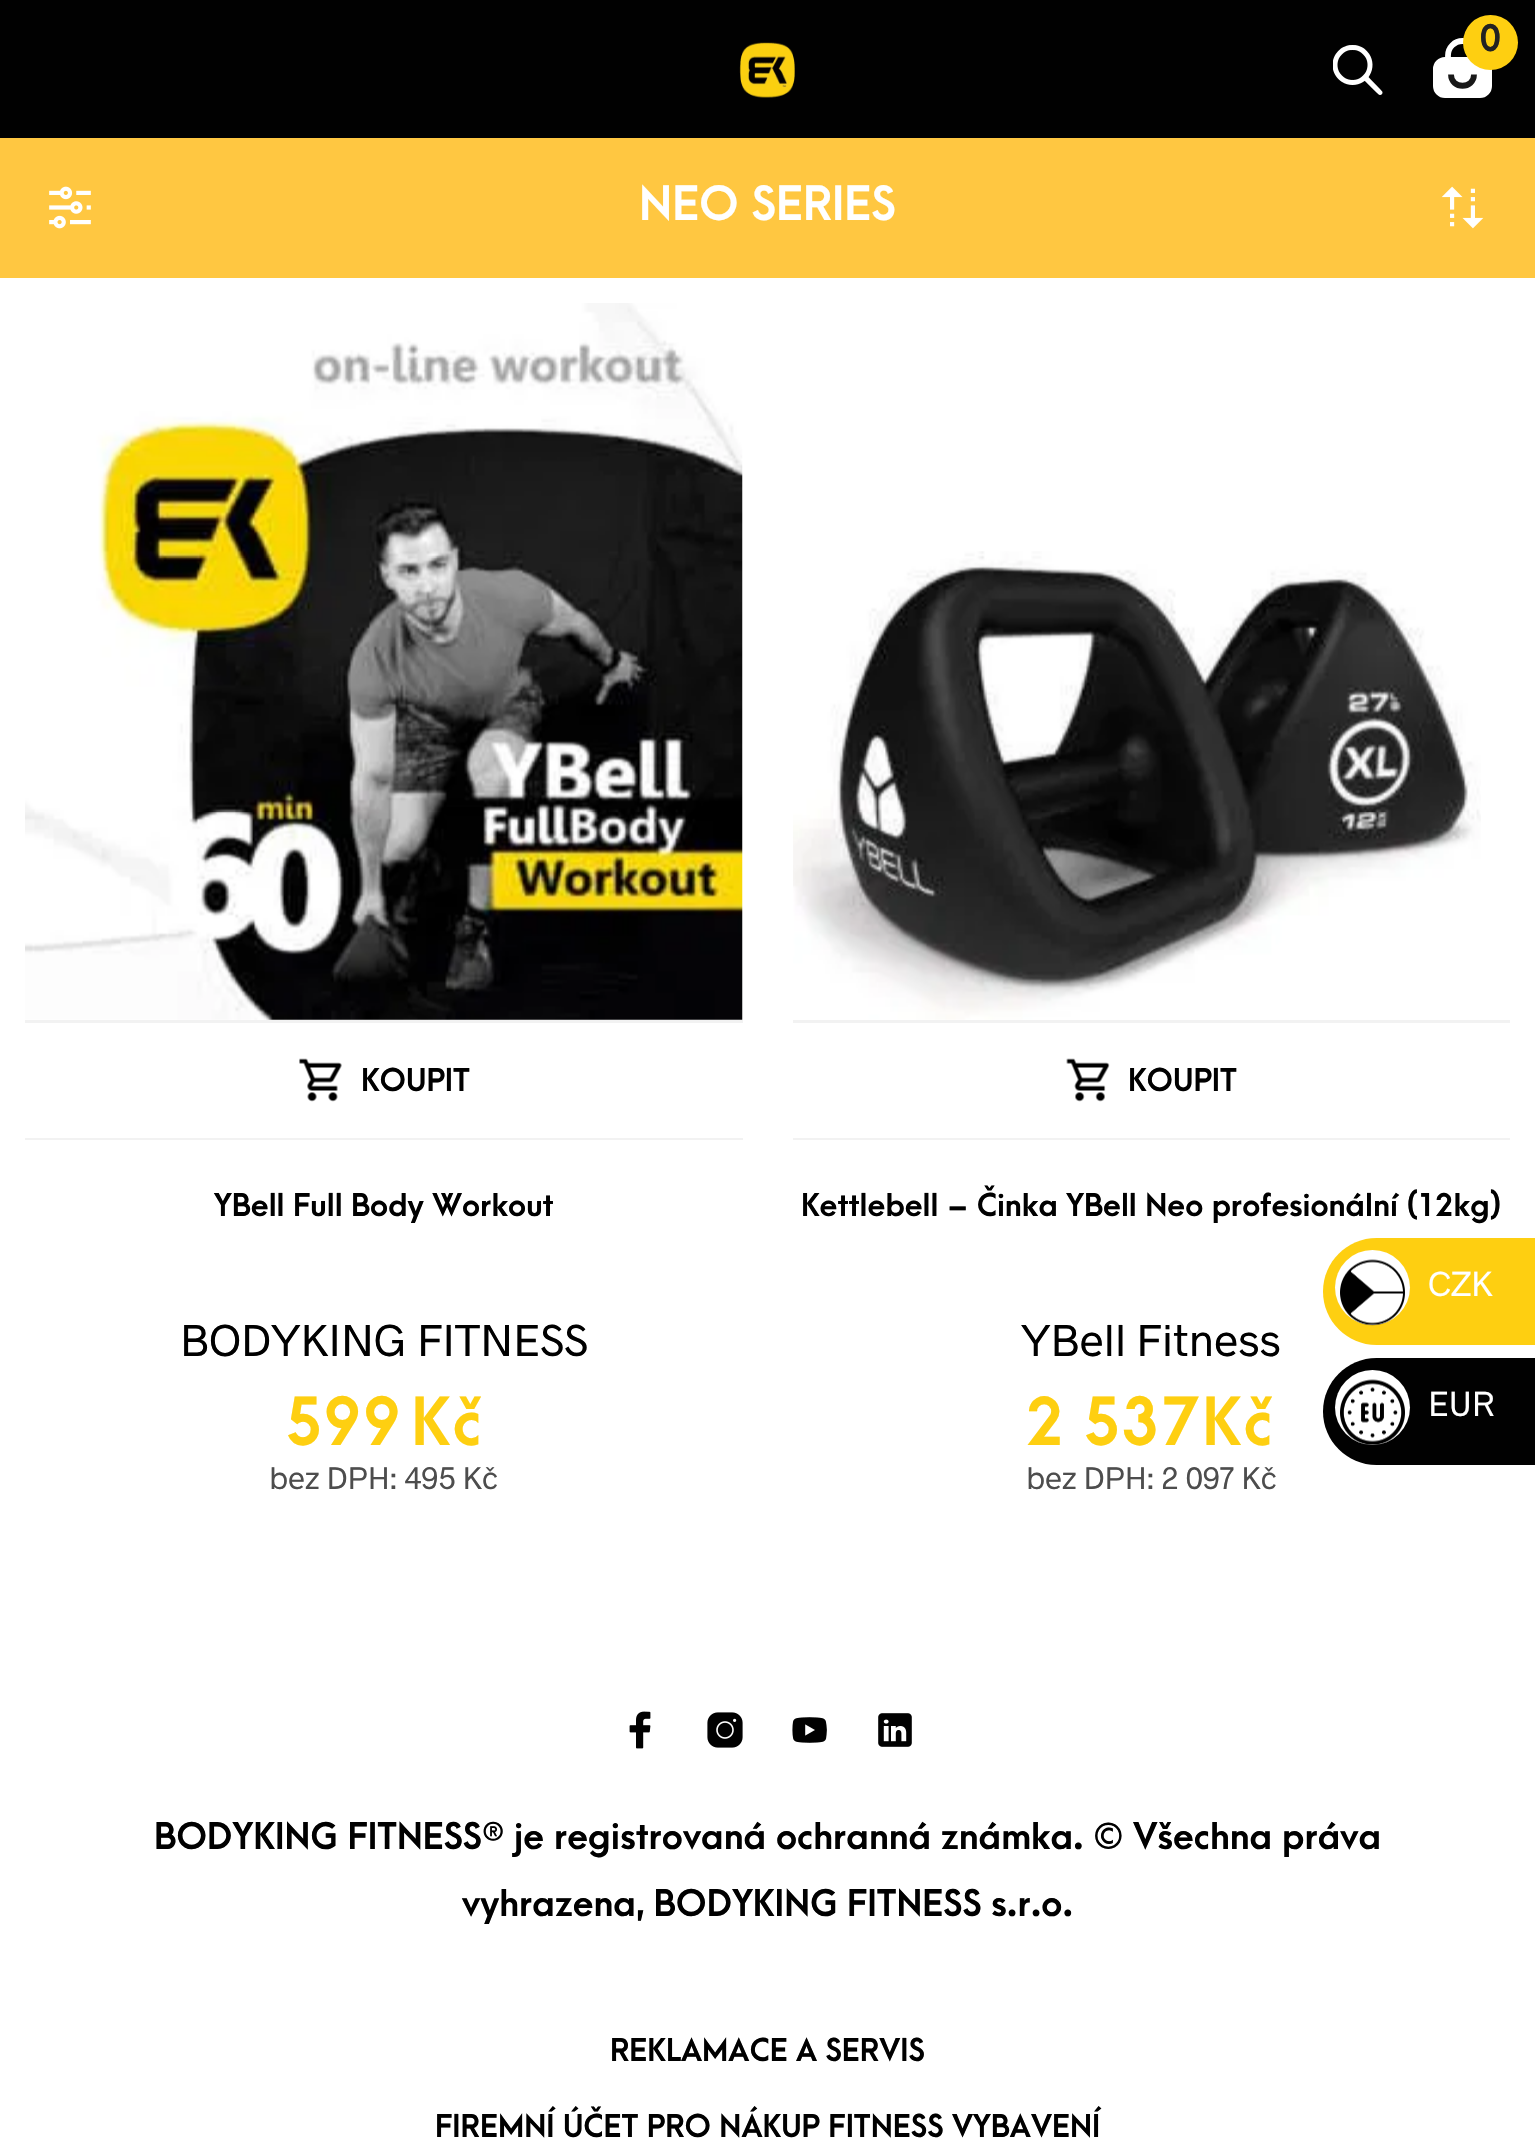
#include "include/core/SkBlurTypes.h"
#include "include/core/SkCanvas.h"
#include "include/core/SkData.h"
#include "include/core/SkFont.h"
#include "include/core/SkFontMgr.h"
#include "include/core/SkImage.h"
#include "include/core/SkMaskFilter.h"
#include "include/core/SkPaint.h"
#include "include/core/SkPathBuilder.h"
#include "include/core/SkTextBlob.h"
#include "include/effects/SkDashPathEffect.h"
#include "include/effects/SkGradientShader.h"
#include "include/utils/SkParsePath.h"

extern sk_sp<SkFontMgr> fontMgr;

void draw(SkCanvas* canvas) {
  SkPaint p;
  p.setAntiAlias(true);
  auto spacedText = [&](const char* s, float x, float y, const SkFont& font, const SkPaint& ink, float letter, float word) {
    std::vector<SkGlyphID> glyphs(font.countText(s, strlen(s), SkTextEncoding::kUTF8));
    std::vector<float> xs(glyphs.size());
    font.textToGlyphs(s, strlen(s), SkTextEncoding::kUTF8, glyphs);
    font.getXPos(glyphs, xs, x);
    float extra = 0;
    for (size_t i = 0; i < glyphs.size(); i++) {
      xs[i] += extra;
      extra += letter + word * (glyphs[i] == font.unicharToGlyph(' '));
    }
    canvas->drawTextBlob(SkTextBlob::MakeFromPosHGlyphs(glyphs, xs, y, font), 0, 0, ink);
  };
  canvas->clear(SK_ColorWHITE);
  p.setColor(SkColorSetRGB(1, 1, 1));
  canvas->drawRect(SkRect::MakeLTRB(0, 0, 1535, 138), p);
  p.setColor(SK_ColorWHITE);
  canvas->drawRoundRect(SkRect::MakeLTRB(1436, 60, 1489, 95), 9, 9, p);
  p.setStyle(SkPaint::kStroke_Style);
  p.setStrokeWidth(6);
  canvas->drawRoundRect(SkRect::MakeLTRB(1436, 60, 1489, 95), 9, 9, p);
  p.setStrokeWidth(5.8f);
  canvas->drawPath(SkPathBuilder().moveTo(1448, 60).lineTo(1448, 55.5f).cubicTo(1448, 47.5f, 1454.5f, 41, 1462.5f, 41).cubicTo(1470.5f, 41, 1477, 47.5f, 1477, 55.5f).lineTo(1477, 60).detach(), p);
  p.setStyle(SkPaint::kFill_Style);
  p.setColor(SkColorSetRGB(254, 207, 17));
  canvas->drawCircle(1490.5f, 42.5f, 27.5f, p);
  p.setStyle(SkPaint::kStroke_Style);
  p.setColor(SkColorSetRGB(24, 24, 24));
  canvas->drawPath(SkPathBuilder().moveTo(1474, 74.5f).cubicTo(1474, 89.5f, 1451, 89.5f, 1451, 74.5f).detach(), p);
  canvas->drawImageRect(SkImages::DeferredFromEncodedData(SkData::MakeFromFileName("images/1.png")), SkRect::MakeLTRB(1333, 45, 1383, 95), SkSamplingOptions());
  canvas->drawImageRect(SkImages::DeferredFromEncodedData(SkData::MakeFromFileName("images/2.png")), SkRect::MakeLTRB(739, 42, 795, 98), SkSamplingOptions());
  p.setStyle(SkPaint::kFill_Style);
  p.setColor(SkColorSetRGB(255, 199, 65));
  canvas->drawRect(SkRect::MakeLTRB(0, 138, 1535, 278), p);
  canvas->drawImageRect(SkImages::DeferredFromEncodedData(SkData::MakeFromFileName("images/3.png")), SkRect::MakeLTRB(49, 186, 91, 229), SkSamplingOptions());
  canvas->drawImageRect(SkImages::DeferredFromEncodedData(SkData::MakeFromFileName("images/4.png")), SkRect::MakeLTRB(1441, 186, 1484, 229), SkSamplingOptions());
  canvas->drawImageRect(SkImages::DeferredFromEncodedData(SkData::MakeFromFileName("images/5.png")), SkRect::MakeLTRB(25, 303, 743, 1020), SkSamplingOptions());
  p.setColor(SkColorSetRGB(242, 242, 242));
  canvas->drawRect(SkRect::MakeLTRB(25, 1020, 743, 1023), p);
  canvas->drawRect(SkRect::MakeLTRB(25, 1138, 743, 1140), p);
  canvas->drawImageRect(SkImages::DeferredFromEncodedData(SkData::MakeFromFileName("images/6.png")), SkRect::MakeLTRB(299, 1058, 342, 1102), SkSamplingOptions());
  canvas->drawImageRect(SkImages::DeferredFromEncodedData(SkData::MakeFromFileName("images/7.png")), SkRect::MakeLTRB(793, 551, 1481, 1020), SkSamplingOptions());
  canvas->drawRect(SkRect::MakeLTRB(793, 1020, 1510, 1023), p);
  canvas->drawRect(SkRect::MakeLTRB(793, 1138, 1510, 1140), p);
  canvas->drawImageRect(SkImages::DeferredFromEncodedData(SkData::MakeFromFileName("images/8.png")), SkRect::MakeLTRB(1066, 1058, 1110, 1102), SkSamplingOptions());
  canvas->drawImageRect(SkImages::DeferredFromEncodedData(SkData::MakeFromFileName("images/9.png")), SkRect::MakeLTRB(629, 1711, 651, 1749), SkSamplingOptions());
  canvas->drawImageRect(SkImages::DeferredFromEncodedData(SkData::MakeFromFileName("images/10.png")), SkRect::MakeLTRB(707, 1712, 743, 1748), SkSamplingOptions());
  canvas->drawImageRect(SkImages::DeferredFromEncodedData(SkData::MakeFromFileName("images/11.png")), SkRect::MakeLTRB(792, 1717, 827, 1743), SkSamplingOptions());
  canvas->drawImageRect(SkImages::DeferredFromEncodedData(SkData::MakeFromFileName("images/12.png")), SkRect::MakeLTRB(878, 1713, 912, 1747), SkSamplingOptions());
  p.setColor(SkColorSetRGB(254, 207, 17));
  canvas->drawPath(SkPathBuilder().moveTo(1376.5f, 1238).lineTo(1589, 1238).lineTo(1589, 1345).lineTo(1376.5f, 1345).cubicTo(1347, 1345, 1323, 1321, 1323, 1291.5f).cubicTo(1323, 1262, 1347, 1238, 1376.5f, 1238).close().detach(), p);
  p.setColor(SK_ColorWHITE);
  canvas->drawCircle(1372.5f, 1287.5f, 37.5f, p);
  canvas->drawImageRect(SkImages::DeferredFromEncodedData(SkData::MakeFromFileName("images/13.png")), SkRect::MakeLTRB(1340, 1259, 1405, 1326), SkSamplingOptions());
  p.setColor(SkColorSetRGB(1, 1, 1));
  canvas->drawPath(SkPathBuilder().moveTo(1376.5f, 1358).lineTo(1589, 1358).lineTo(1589, 1465).lineTo(1376.5f, 1465).cubicTo(1347, 1465, 1323, 1441, 1323, 1411.5f).cubicTo(1323, 1382, 1347, 1358, 1376.5f, 1358).close().detach(), p);
  p.setColor(SK_ColorWHITE);
  canvas->drawCircle(1372.5f, 1407.5f, 37.5f, p);
  canvas->drawImageRect(SkImages::DeferredFromEncodedData(SkData::MakeFromFileName("images/14.png")), SkRect::MakeLTRB(1340, 1379, 1405, 1445), SkSamplingOptions());
  SkFont font1(fontMgr->matchFamilyStyle("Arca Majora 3", SkFontStyle::Bold()), 35);
  font1.setSubpixel(true);
  p.setColor(SkColorSetRGB(34, 34, 34));
  canvas->drawString("0", 1480, 51, font1, p);
  SkFont font2(fontMgr->matchFamilyStyle("Arca Majora 3", SkFontStyle::Bold()), 45);
  font2.setSubpixel(true);
  p.setColor(SK_ColorWHITE);
  canvas->drawString("NEO SERIES", 639, 220, font2, p);
  SkFont font3(fontMgr->matchFamilyStyle("Arca Majora 3", SkFontStyle::Bold()), 30);
  font3.setSubpixel(true);
  p.setColor(SK_ColorBLACK);
  canvas->drawString("KOUPIT", 361, 1091, font3, p);
  canvas->drawString("YBell Full Body Workout", 214, 1216, font3, p);
  SkFont font4(fontMgr->matchFamilyStyle("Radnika", SkFontStyle::Normal()), 45);
  font4.setSubpixel(true);
  canvas->drawString("BODYKING FITNESS", 180, 1356, font4, p);
  SkFont font5(fontMgr->matchFamilyStyle("Arca Majora 3", SkFontStyle::Bold()), 63);
  font5.setSubpixel(true);
  p.setColor(SkColorSetRGB(254, 207, 17));
  spacedText("599", 284, 1445, font5, p, 2.5f, 0);
  spacedText("Kč", 411, 1445, font5, p, 2.5f, 0);
  SkFont font6(fontMgr->matchFamilyStyle("Radnika", SkFontStyle::Normal()), 31.5f);
  font6.setSubpixel(true);
  p.setColor(SkColorSetRGB(77, 77, 77));
  canvas->drawString("bez DPH: 495 Kč", 269, 1489, font6, p);
  p.setColor(SK_ColorBLACK);
  canvas->drawString("KOUPIT", 1128, 1091, font3, p);
  canvas->drawString("Kettlebell – Činka YBell Neo profesionální (12kg)", 801, 1216, font3, p);
  canvas->drawString("YBell Fitness", 1021, 1356, font4, p);
  p.setColor(SkColorSetRGB(254, 207, 17));
  spacedText("2", 1027, 1445, font5, p, 2.5f, 0);
  spacedText("537", 1082, 1445, font5, p, 2.5f, 0);
  spacedText("Kč", 1202, 1445, font5, p, 2.5f, 0);
  p.setColor(SkColorSetRGB(77, 77, 77));
  canvas->drawString("bez DPH: 2 097 Kč", 1026, 1489, font6, p);
  p.setColor(SK_ColorBLACK);
  canvas->drawString("BODYKING FITNESS® je registrovaná ochranná známka. © Všechna práva", 154, 1849, font1, p);
  canvas->drawString("vyhrazena, BODYKING FITNESS s.r.o.", 462, 1916, font1, p);
  canvas->drawString("REKLAMACE A SERVIS", 610, 2061, font3, p);
  canvas->drawString("FIREMNÍ ÚČET PRO NÁKUP FITNESS VYBAVENÍ", 435, 2137, font3, p);
  SkFont font7(fontMgr->matchFamilyStyle("Radnika", SkFontStyle::Normal()), 35);
  font7.setSubpixel(true);
  p.setColor(SK_ColorWHITE);
  canvas->drawString("CZK", 1428, 1296, font7, p);
  canvas->drawString("EUR", 1428, 1416, font7, p);
}
